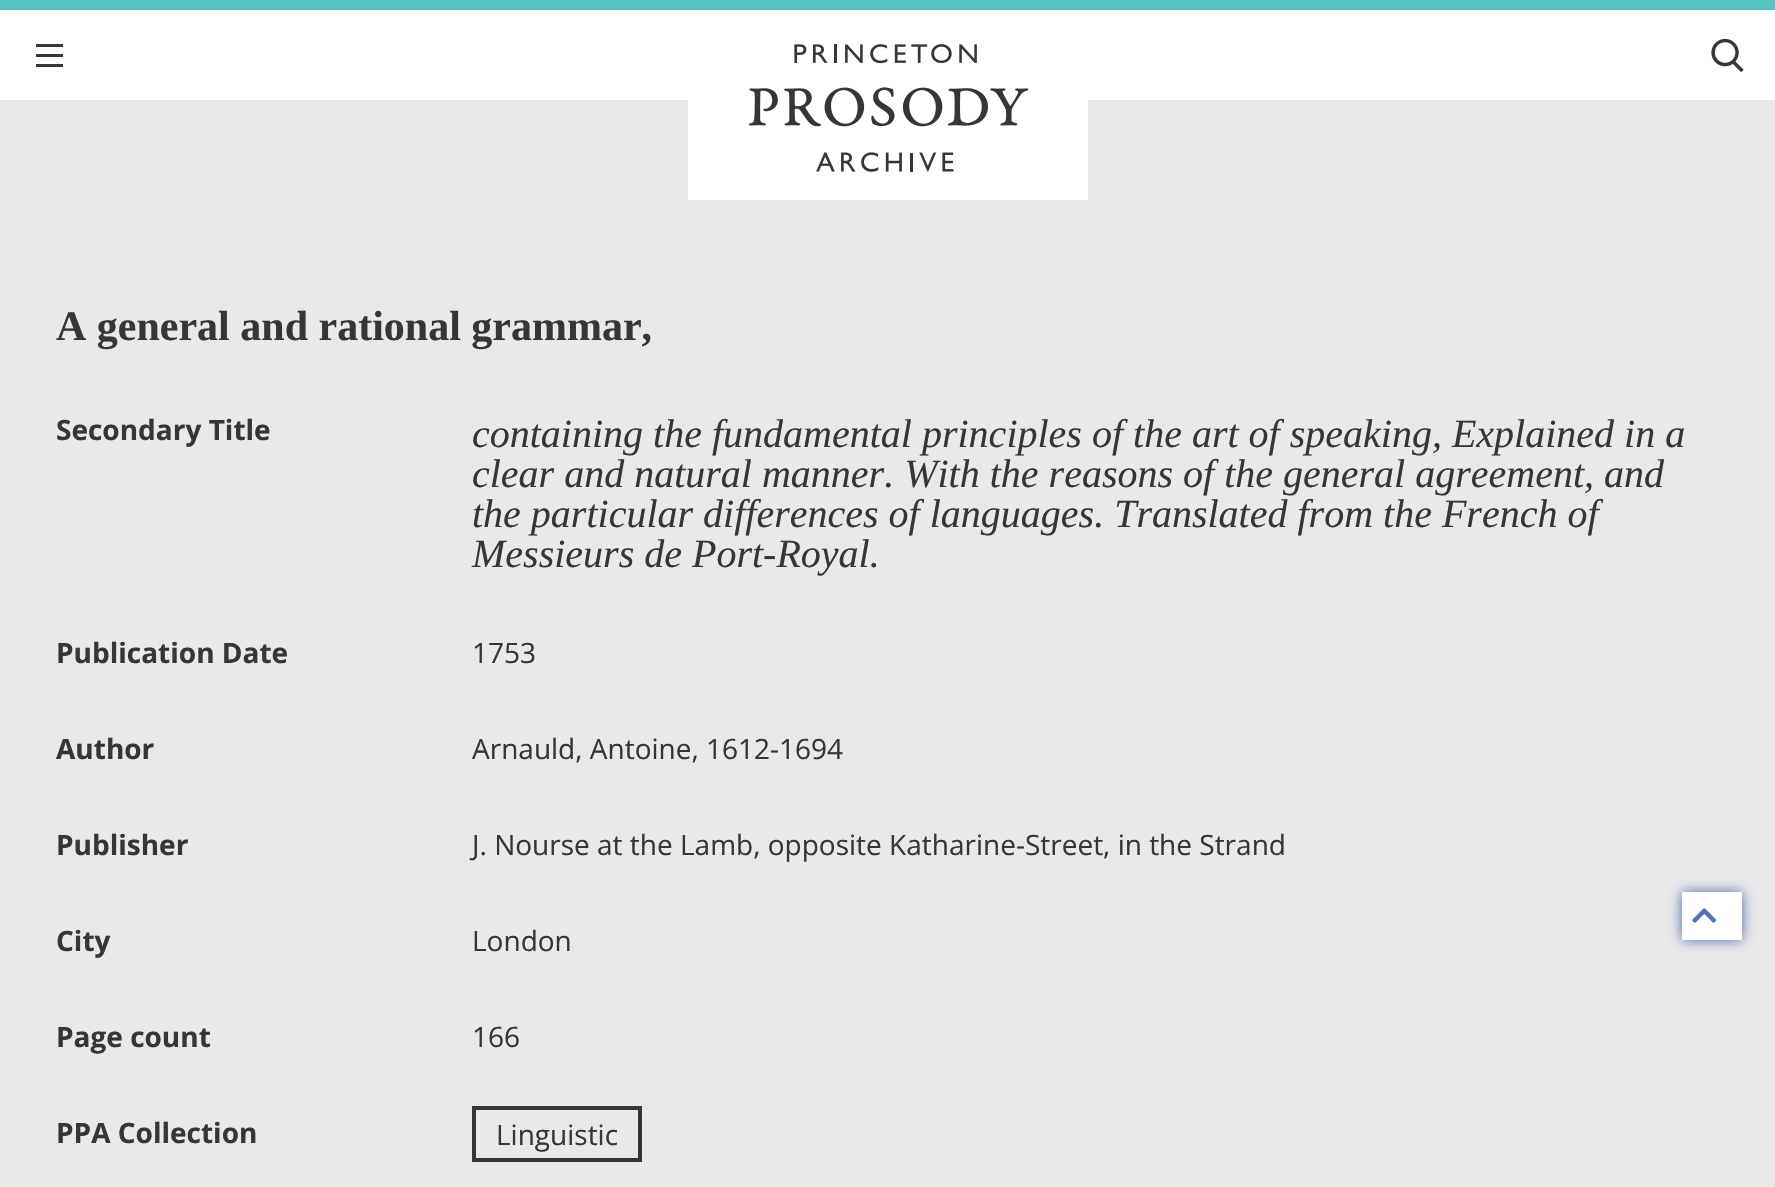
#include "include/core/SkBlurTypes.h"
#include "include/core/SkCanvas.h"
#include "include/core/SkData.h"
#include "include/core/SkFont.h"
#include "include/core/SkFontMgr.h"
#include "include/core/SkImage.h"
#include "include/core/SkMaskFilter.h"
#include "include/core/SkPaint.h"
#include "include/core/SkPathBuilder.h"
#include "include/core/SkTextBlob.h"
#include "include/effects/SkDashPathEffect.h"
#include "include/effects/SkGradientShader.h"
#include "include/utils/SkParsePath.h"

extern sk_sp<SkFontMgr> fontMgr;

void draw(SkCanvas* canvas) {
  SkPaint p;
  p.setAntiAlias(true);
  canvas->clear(SkColorSetRGB(233, 233, 233));
  p.setColor(SK_ColorWHITE);
  canvas->drawRect(SkRect::MakeLTRB(0, 10, 1775, 100), p);
  p.setColor(SkColorSetRGB(87, 196, 196));
  canvas->drawRect(SkRect::MakeLTRB(0, 0, 1775, 10), p);
  p.setColor(SkColorSetRGB(54, 54, 54));
  canvas->drawRect(SkRect::MakeLTRB(36, 44, 63, 47), p);
  canvas->drawRect(SkRect::MakeLTRB(36, 54, 63, 57), p);
  canvas->drawRect(SkRect::MakeLTRB(36, 64, 63, 67), p);
  p.setColor(SK_ColorWHITE);
  canvas->drawRect(SkRect::MakeLTRB(688, 100, 1088, 200), p);
  canvas->drawImageRect(SkImages::DeferredFromEncodedData(SkData::MakeFromFileName("images/1.png")), SkRect::MakeLTRB(748, 44, 1029, 172), SkSamplingOptions());
  canvas->drawImageRect(SkImages::DeferredFromEncodedData(SkData::MakeFromFileName("images/2.png")), SkRect::MakeLTRB(1711, 38, 1744, 72), SkSamplingOptions());
  p.setStyle(SkPaint::kStroke_Style);
  p.setStrokeWidth(4);
  p.setColor(SkColorSetRGB(54, 54, 54));
  canvas->drawRect(SkRect::MakeLTRB(474, 1108, 640, 1160), p);
  p.setStyle(SkPaint::kFill_Style);
  p.setColor(SkColorSetRGB(70, 97, 172));
  p.setMaskFilter(SkMaskFilter::MakeBlur(kNormal_SkBlurStyle, 6));
  canvas->drawRect(SkRect::MakeLTRB(1682, 892, 1742, 940), p);
  p.setMaskFilter(nullptr);
  p.setColor(SK_ColorWHITE);
  canvas->drawRect(SkRect::MakeLTRB(1682, 892, 1742, 940), p);
  canvas->drawImageRect(SkImages::DeferredFromEncodedData(SkData::MakeFromFileName("images/3.png")), SkRect::MakeLTRB(1692, 908, 1717, 923), SkSamplingOptions());
  SkFont font1(fontMgr->matchFamilyStyle("Liberation Serif", SkFontStyle::Bold()), 42);
  font1.setSubpixel(true);
  p.setColor(SkColorSetRGB(54, 54, 54));
  canvas->drawString("A general and rational grammar,", 56, 340, font1, p);
  SkFont font2(fontMgr->matchFamilyStyle("Open Sans", SkFontStyle::Bold()), 28);
  font2.setSubpixel(true);
  canvas->drawString("Secondary Title", 56, 440, font2, p);
  SkFont font3(fontMgr->matchFamilyStyle("Liberation Serif", SkFontStyle::Italic()), 40);
  font3.setSubpixel(true);
  canvas->drawString("containing the fundamental principles of the art of speaking, Explained in a", 472, 447, font3, p);
  canvas->drawString("clear and natural manner. With the reasons of the general agreement, and", 472, 487, font3, p);
  canvas->drawString("the particular differences of languages. Translated from the French of", 472, 527, font3, p);
  canvas->drawString("Messieurs de Port-Royal.", 472, 567, font3, p);
  canvas->drawString("Publication Date", 56, 663, font2, p);
  SkFont font4(fontMgr->matchFamilyStyle("Open Sans", SkFontStyle::Normal()), 28);
  font4.setSubpixel(true);
  canvas->drawString("1753", 472, 663, font4, p);
  canvas->drawString("Author", 56, 759, font2, p);
  canvas->drawString("Arnauld, Antoine, 1612-1694", 472, 759, font4, p);
  canvas->drawString("Publisher", 56, 855, font2, p);
  canvas->drawString("J. Nourse at the Lamb, opposite Katharine-Street, in the Strand", 472, 855, font4, p);
  canvas->drawString("City", 56, 951, font2, p);
  canvas->drawString("London", 472, 951, font4, p);
  canvas->drawString("Page count", 56, 1047, font2, p);
  canvas->drawString("166", 472, 1047, font4, p);
  canvas->drawString("PPA Collection", 56, 1143, font2, p);
  canvas->drawString("Linguistic", 496, 1145, font4, p);
}
